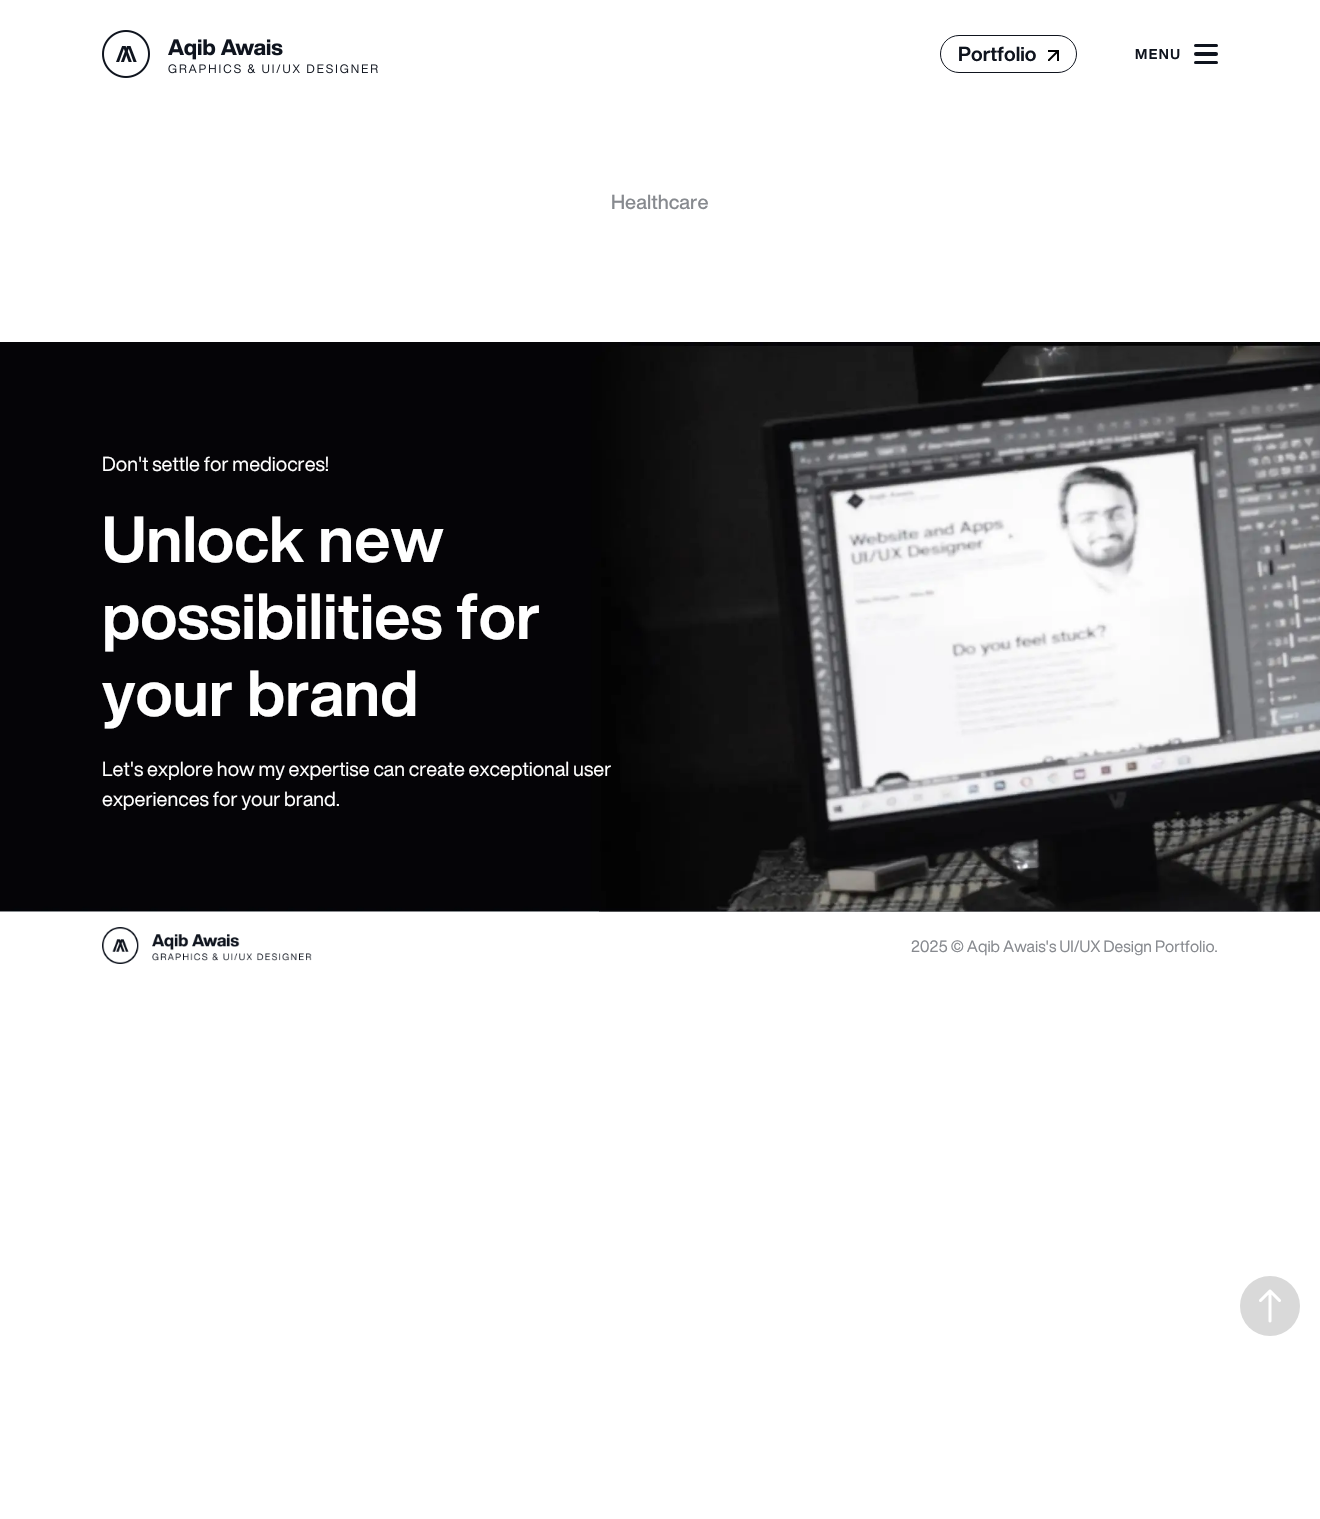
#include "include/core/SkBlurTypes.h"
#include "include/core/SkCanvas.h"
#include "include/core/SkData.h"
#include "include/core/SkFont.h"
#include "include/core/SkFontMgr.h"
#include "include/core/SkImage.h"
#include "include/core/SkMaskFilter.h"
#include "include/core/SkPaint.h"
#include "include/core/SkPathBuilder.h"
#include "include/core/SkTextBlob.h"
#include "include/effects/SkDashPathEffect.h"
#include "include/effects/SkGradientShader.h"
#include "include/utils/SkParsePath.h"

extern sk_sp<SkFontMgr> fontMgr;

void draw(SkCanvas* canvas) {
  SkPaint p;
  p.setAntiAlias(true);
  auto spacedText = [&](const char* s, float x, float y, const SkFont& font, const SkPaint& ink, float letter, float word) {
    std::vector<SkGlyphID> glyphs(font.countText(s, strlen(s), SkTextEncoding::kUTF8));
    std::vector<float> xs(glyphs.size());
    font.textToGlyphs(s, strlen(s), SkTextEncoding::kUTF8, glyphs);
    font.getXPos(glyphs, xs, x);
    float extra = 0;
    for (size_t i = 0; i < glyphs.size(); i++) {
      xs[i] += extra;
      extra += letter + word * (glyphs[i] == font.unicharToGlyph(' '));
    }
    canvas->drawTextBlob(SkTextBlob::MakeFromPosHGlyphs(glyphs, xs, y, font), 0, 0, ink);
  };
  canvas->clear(SK_ColorWHITE);
  canvas->drawImageRect(SkImages::DeferredFromEncodedData(SkData::MakeFromFileName("images/1.png")), SkRect::MakeLTRB(102, 30, 378, 78), SkSamplingOptions());
  p.setStyle(SkPaint::kStroke_Style);
  p.setStrokeWidth(1);
  p.setColor(SkColorSetRGB(15, 20, 30));
  canvas->drawRoundRect(SkRect::MakeLTRB(940.5f, 35.5f, 1076.5f, 72.5f), 18.5f, 18.5f, p);
  canvas->drawImageRect(SkImages::DeferredFromEncodedData(SkData::MakeFromFileName("images/2.png")), SkRect::MakeLTRB(1048, 50, 1059, 61), SkSamplingOptions());
  p.setStyle(SkPaint::kFill_Style);
  canvas->drawRoundRect(SkRect::MakeLTRB(1194, 44, 1218, 47), 1.5f, 1.5f, p);
  canvas->drawRoundRect(SkRect::MakeLTRB(1194, 52, 1218, 56), 2, 2, p);
  canvas->drawRoundRect(SkRect::MakeLTRB(1194, 61, 1218, 64), 1.5f, 1.5f, p);
  canvas->drawImageRect(SkImages::DeferredFromEncodedData(SkData::MakeFromFileName("images/3.png")), SkRect::MakeLTRB(0, 342, 1320, 912), SkSamplingOptions());
  canvas->drawImageRect(SkImages::DeferredFromEncodedData(SkData::MakeFromFileName("images/4.png")), SkRect::MakeLTRB(102, 927, 312, 964), SkSamplingOptions());
  p.setColor(SkColorSetRGB(217, 217, 217));
  canvas->drawCircle(1270, 1306, 30, p);
  canvas->drawImageRect(SkImages::DeferredFromEncodedData(SkData::MakeFromFileName("images/5.png")), SkRect::MakeLTRB(1259, 1289, 1281, 1323), SkSamplingOptions());
  SkFont font1(fontMgr->matchFamilyStyle("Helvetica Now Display", SkFontStyle::Bold()), 20);
  font1.setSubpixel(true);
  p.setColor(SkColorSetRGB(15, 20, 30));
  canvas->drawString("Portfolio", 958, 61, font1, p);
  SkFont font2(fontMgr->matchFamilyStyle("Helvetica Now Display", SkFontStyle::Bold()), 14);
  font2.setSubpixel(true);
  spacedText("MENU", 1135, 59, font2, p, 1.5f, 0);
  SkFont font3(fontMgr->matchFamilyStyle("Helvetica Now Display", SkFontStyle(500, SkFontStyle::kNormal_Width, SkFontStyle::kUpright_Slant)), 20);
  font3.setSubpixel(true);
  p.setColor(SkColorSetRGB(135, 138, 143));
  canvas->drawString("Healthcare", 611, 209, font3, p);
  SkFont font4(fontMgr->matchFamilyStyle("Helvetica Now Display", SkFontStyle::Normal()), 20);
  font4.setSubpixel(true);
  p.setColor(SK_ColorWHITE);
  canvas->drawString("Don't settle for mediocres!", 102, 471, font4, p);
  SkFont font5(fontMgr->matchFamilyStyle("Helvetica Now Display", SkFontStyle::Bold()), 64);
  font5.setSubpixel(true);
  canvas->drawString("Unlock new", 102, 562, font5, p);
  canvas->drawString("possibilities for", 102, 639, font5, p);
  canvas->drawString("your brand", 102, 716, font5, p);
  canvas->drawString("Let's explore how my expertise can create exceptional user", 102, 776, font4, p);
  canvas->drawString("experiences for your brand.", 102, 806, font4, p);
  SkFont font6(fontMgr->matchFamilyStyle("Helvetica Now Display", SkFontStyle::Normal()), 16);
  font6.setSubpixel(true);
  p.setColor(SkColorSetRGB(135, 138, 143));
  canvas->drawString("2025 © Aqib Awais's UI/UX Design Portfolio.", 911, 952, font6, p);
}
